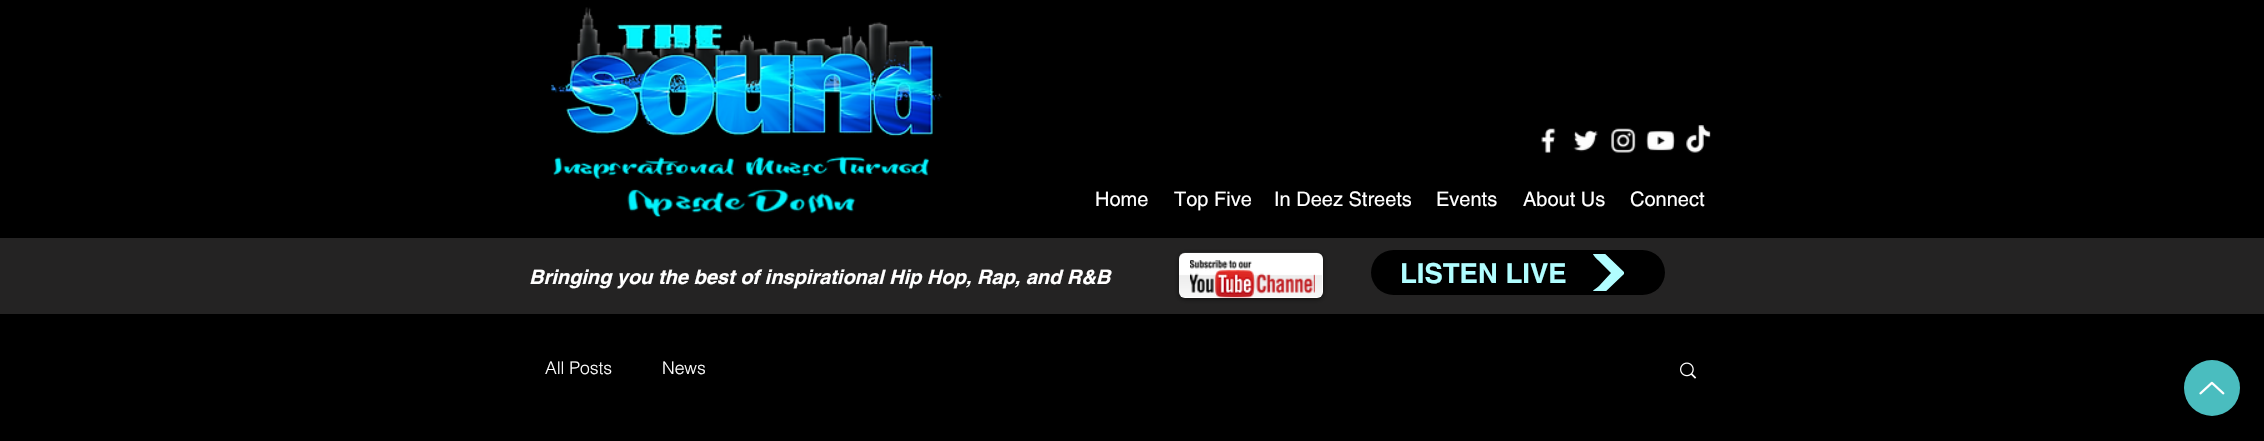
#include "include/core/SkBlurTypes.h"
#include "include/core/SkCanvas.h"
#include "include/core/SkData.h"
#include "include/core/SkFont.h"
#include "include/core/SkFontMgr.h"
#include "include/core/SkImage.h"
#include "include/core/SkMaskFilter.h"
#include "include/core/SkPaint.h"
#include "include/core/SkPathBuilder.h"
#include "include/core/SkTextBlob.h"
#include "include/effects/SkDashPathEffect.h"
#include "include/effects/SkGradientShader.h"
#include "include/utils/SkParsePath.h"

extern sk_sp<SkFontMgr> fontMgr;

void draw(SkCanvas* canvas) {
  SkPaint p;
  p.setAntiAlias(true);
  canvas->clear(SK_ColorBLACK);
  canvas->drawImageRect(SkImages::DeferredFromEncodedData(SkData::MakeFromFileName("images/1.png")), SkRect::MakeLTRB(550, 7, 943, 137), SkSamplingOptions());
  canvas->drawImageRect(SkImages::DeferredFromEncodedData(SkData::MakeFromFileName("images/2.png")), SkRect::MakeLTRB(1541, 128, 1556, 153), SkSamplingOptions());
  canvas->drawImageRect(SkImages::DeferredFromEncodedData(SkData::MakeFromFileName("images/3.png")), SkRect::MakeLTRB(1573, 130, 1598, 152), SkSamplingOptions());
  canvas->drawImageRect(SkImages::DeferredFromEncodedData(SkData::MakeFromFileName("images/4.png")), SkRect::MakeLTRB(1611, 128, 1636, 153), SkSamplingOptions());
  canvas->drawImageRect(SkImages::DeferredFromEncodedData(SkData::MakeFromFileName("images/5.png")), SkRect::MakeLTRB(1646, 130, 1675, 151), SkSamplingOptions());
  canvas->drawImageRect(SkImages::DeferredFromEncodedData(SkData::MakeFromFileName("images/6.png")), SkRect::MakeLTRB(1686, 125, 1711, 153), SkSamplingOptions());
  canvas->drawImageRect(SkImages::DeferredFromEncodedData(SkData::MakeFromFileName("images/7.png")), SkRect::MakeLTRB(553, 156, 929, 217), SkSamplingOptions());
  p.setColor(SkColorSetRGB(36, 35, 35));
  canvas->drawRect(SkRect::MakeLTRB(0, 238, 2264, 314), p);
  p.setColor(SkColorSetARGB(153, 0, 0, 0));
  p.setMaskFilter(SkMaskFilter::MakeBlur(kNormal_SkBlurStyle, 2.5f));
  canvas->drawRoundRect(SkRect::MakeLTRB(1179, 254, 1323, 299), 6, 6, p);
  p.setMaskFilter(nullptr);
  p.setColor(SK_ColorWHITE);
  canvas->drawRoundRect(SkRect::MakeLTRB(1179, 253, 1323, 298), 6, 6, p);
  canvas->drawImageRect(SkImages::DeferredFromEncodedData(SkData::MakeFromFileName("images/8.png")), SkRect::MakeLTRB(1179, 252, 1322, 297), SkSamplingOptions());
  canvas->drawImageRect(SkImages::DeferredFromEncodedData(SkData::MakeFromFileName("images/9.png")), SkRect::MakeLTRB(1190, 260, 1315, 298), SkSamplingOptions());
  p.setColor(SK_ColorBLACK);
  canvas->drawRoundRect(SkRect::MakeLTRB(1371, 250, 1665, 295), 22.5f, 22.5f, p);
  canvas->save();
  canvas->clipRect(SkRect::MakeLTRB(1580, 254, 1636, 291));
  p.setColor(SkColorSetRGB(177, 253, 255));
  canvas->drawPath(SkPathBuilder().moveTo(1624, 272).lineTo(1599, 248).cubicTo(1597, 246, 1594, 251, 1593, 252).cubicTo(1591, 254, 1598, 260, 1599, 261).lineTo(1611, 273).lineTo(1599, 286).cubicTo(1593, 291, 1590, 291, 1595, 296).cubicTo(1599, 300, 1598, 299, 1602, 295).lineTo(1624, 274).cubicTo(1624, 273, 1624, 273, 1624, 272).close().detach(), p);
  canvas->restore();
  canvas->drawImageRect(SkImages::DeferredFromEncodedData(SkData::MakeFromFileName("images/10.png")), SkRect::MakeLTRB(1680, 362, 1697, 379), SkSamplingOptions());
  p.setColor(SkColorSetRGB(74, 189, 191));
  canvas->drawCircle(2212, 388, 28, p);
  canvas->drawImageRect(SkImages::DeferredFromEncodedData(SkData::MakeFromFileName("images/11.png")), SkRect::MakeLTRB(2199, 381, 2225, 395), SkSamplingOptions());
  SkFont font1(fontMgr->matchFamilyStyle("helvetica", SkFontStyle::Normal()), 20);
  font1.setSubpixel(true);
  p.setColor(SK_ColorWHITE);
  canvas->drawString("Home", 1095, 206, font1, p);
  canvas->drawString("Top Five", 1174, 206, font1, p);
  canvas->drawString("In Deez Streets", 1274, 206, font1, p);
  canvas->drawString("Events", 1436, 206, font1, p);
  canvas->drawString("About Us", 1523, 206, font1, p);
  canvas->drawString("Connect", 1630, 206, font1, p);
  SkFont font2(fontMgr->matchFamilyStyle("helvetica", SkFontStyle::BoldItalic()), 20);
  font2.setSubpixel(true);
  canvas->drawString("Bringing you the best of inspirational Hip Hop, Rap, and R&B", 529, 284, font2, p);
  SkFont font3(fontMgr->matchFamilyStyle("helvetica", SkFontStyle::Bold()), 27.5f);
  font3.setSubpixel(true);
  p.setColor(SkColorSetRGB(177, 253, 255));
  canvas->drawString("LISTEN LIVE", 1400, 283, font3, p);
  SkFont font4(fontMgr->matchFamilyStyle("helvetica", SkFontStyle(300, SkFontStyle::kNormal_Width, SkFontStyle::kUpright_Slant)), 17.5f);
  font4.setSubpixel(true);
  p.setColor(SK_ColorWHITE);
  canvas->drawString("All Posts", 545, 374, font4, p);
  canvas->drawString("News", 662, 374, font4, p);
}
